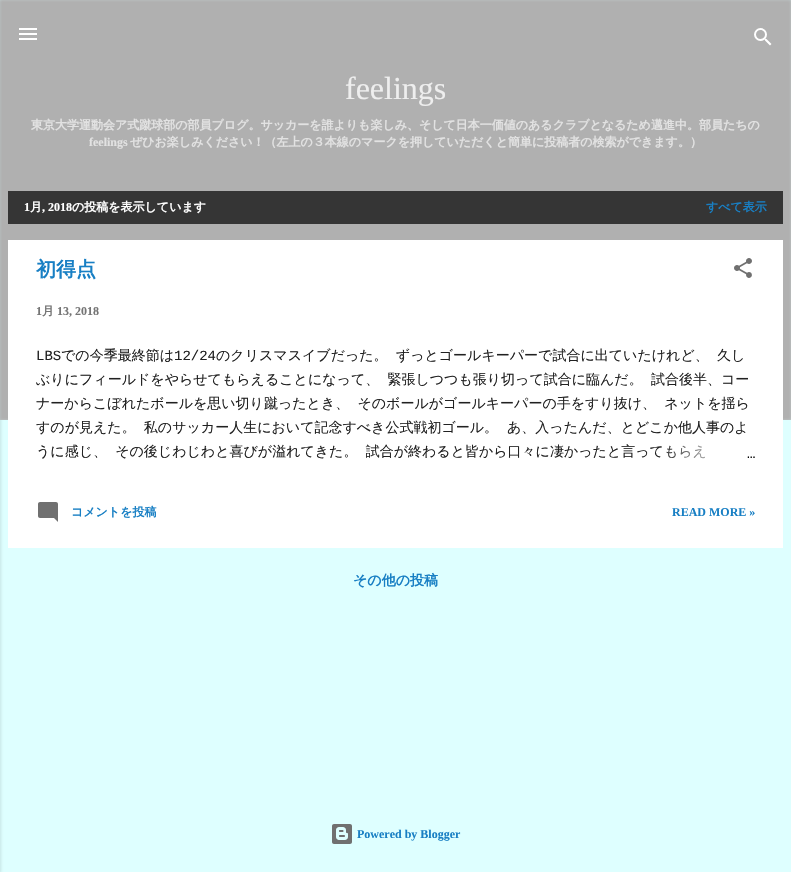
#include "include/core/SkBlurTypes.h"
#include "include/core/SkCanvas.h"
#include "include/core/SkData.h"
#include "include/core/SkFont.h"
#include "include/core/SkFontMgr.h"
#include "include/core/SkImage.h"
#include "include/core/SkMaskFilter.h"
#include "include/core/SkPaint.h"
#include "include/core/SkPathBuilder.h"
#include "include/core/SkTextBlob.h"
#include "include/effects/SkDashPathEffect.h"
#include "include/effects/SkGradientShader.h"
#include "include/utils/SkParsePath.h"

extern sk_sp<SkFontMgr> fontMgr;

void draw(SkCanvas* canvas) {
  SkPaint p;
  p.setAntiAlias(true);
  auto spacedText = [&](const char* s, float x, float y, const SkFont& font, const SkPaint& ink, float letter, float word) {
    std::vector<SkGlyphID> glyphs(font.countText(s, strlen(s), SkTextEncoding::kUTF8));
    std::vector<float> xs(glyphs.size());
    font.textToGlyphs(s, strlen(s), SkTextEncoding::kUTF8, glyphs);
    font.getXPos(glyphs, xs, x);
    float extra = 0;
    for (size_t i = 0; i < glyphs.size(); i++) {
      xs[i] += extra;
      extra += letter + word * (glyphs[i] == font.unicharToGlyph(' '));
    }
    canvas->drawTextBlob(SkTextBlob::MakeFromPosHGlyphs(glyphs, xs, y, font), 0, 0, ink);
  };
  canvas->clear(SkColorSetRGB(222, 255, 255));
  p.setColor(SkColorSetARGB(26, 0, 0, 0));
  p.setMaskFilter(SkMaskFilter::MakeBlur(kNormal_SkBlurStyle, 1.5f));
  canvas->drawRect(SkRect::MakeLTRB(-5, 1, 1, 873), p);
  p.setMaskFilter(nullptr);
  canvas->save();
  canvas->clipRect(SkRect::MakeLTRB(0, 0, 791, 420));
  p.setColor(SkColorSetRGB(176, 176, 176));
  p.setMaskFilter(SkMaskFilter::MakeBlur(kNormal_SkBlurStyle, 2));
  canvas->drawRect(SkRect::MakeLTRB(-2, -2, 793, 422), p);
  p.setMaskFilter(nullptr);
  canvas->restore();
  canvas->drawImageRect(SkImages::DeferredFromEncodedData(SkData::MakeFromFileName("images/1.png")), SkRect::MakeLTRB(19, 28, 37, 40), SkSamplingOptions());
  canvas->drawImageRect(SkImages::DeferredFromEncodedData(SkData::MakeFromFileName("images/2.png")), SkRect::MakeLTRB(754, 28, 772, 46), SkSamplingOptions());
  p.setColor(SkColorSetRGB(53, 53, 53));
  canvas->drawRect(SkRect::MakeLTRB(8, 191, 783, 224), p);
  p.setColor(SK_ColorWHITE);
  canvas->drawRect(SkRect::MakeLTRB(8, 240, 783, 548), p);
  canvas->drawImageRect(SkImages::DeferredFromEncodedData(SkData::MakeFromFileName("images/3.png")), SkRect::MakeLTRB(734, 258, 752, 278), SkSamplingOptions());
  canvas->drawImageRect(SkImages::DeferredFromEncodedData(SkData::MakeFromFileName("images/4.png")), SkRect::MakeLTRB(38, 502, 58, 522), SkSamplingOptions());
  canvas->drawImageRect(SkImages::DeferredFromEncodedData(SkData::MakeFromFileName("images/5.png")), SkRect::MakeLTRB(332, 824, 352, 844), SkSamplingOptions());
  SkFont font1(fontMgr->matchFamilyStyle("Liberation Serif", SkFontStyle::Normal()), 32);
  font1.setSubpixel(true);
  p.setColor(SkColorSetRGB(238, 238, 238));
  canvas->drawString("feelings", 345, 99, font1, p);
  SkFont font2(fontMgr->matchFamilyStyle("WenQuanYi Zen Hei", SkFontStyle::Bold()), 12);
  font2.setSubpixel(true);
  p.setColor(SkColorSetRGB(226, 226, 226));
  canvas->drawString("東京大学運動会ア式蹴球部の部員ブログ。サッカーを誰よりも楽しみ、そして日本一価値のあるクラブとなるため邁進中。部員たちの", 31, 129, font2, p);
  SkFont font3(fontMgr->matchFamilyStyle("Liberation Serif", SkFontStyle::Bold()), 12);
  font3.setSubpixel(true);
  canvas->drawString("feelings", 89, 146, font3, p);
  canvas->drawString("ぜひお楽しみください！（左上の３本線のマークを押していただくと簡単に投稿者の検索ができます。）", 130, 146, font2, p);
  p.setColor(SK_ColorWHITE);
  canvas->drawString("1", 24, 211, font3, p);
  canvas->drawString("月", 30, 211, font2, p);
  canvas->drawString(", 2018", 42, 211, font3, p);
  canvas->drawString("の投稿を表示しています", 72, 211, font2, p);
  p.setColor(SkColorSetRGB(24, 127, 196));
  canvas->drawString("すべて表示", 706, 211, font2, p);
  SkFont font4(fontMgr->matchFamilyStyle("WenQuanYi Zen Hei", SkFontStyle::Bold()), 20);
  font4.setSubpixel(true);
  canvas->drawString("初得点", 36, 276, font4, p);
  p.setColor(SkColorSetRGB(117, 117, 117));
  canvas->drawString("1", 36, 315, font3, p);
  canvas->drawString("月", 42, 315, font2, p);
  canvas->drawString("13, 2018", 57, 315, font3, p);
  SkFont font5(fontMgr->matchFamilyStyle("Liberation Mono", SkFontStyle::Normal()), 14);
  font5.setSubpixel(true);
  p.setColor(SkColorSetRGB(33, 33, 33));
  canvas->drawString("LBS", 36, 360, font5, p);
  SkFont font6(fontMgr->matchFamilyStyle("WenQuanYi Zen Hei", SkFontStyle(500, SkFontStyle::kNormal_Width, SkFontStyle::kUpright_Slant)), 14);
  font6.setSubpixel(true);
  canvas->drawString("での今季最終節は", 61, 360, font6, p);
  canvas->drawString("12/24", 174, 360, font5, p);
  spacedText("のクリスマスイブだった。 ずっとゴールキーパーで試合に出ていたけれど、 久し", 216, 360, font6, p, 0, 4);
  spacedText("ぶりにフィールドをやらせてもらえることになって、 緊張しつつも張り切って試合に臨んだ。", 36, 384, font6, p, 0, 4);
  canvas->drawString("試合後半、コー", 651, 384, font6, p);
  spacedText("ナーからこぼれたボールを思い切り蹴ったとき、 そのボールがゴールキーパーの手をすり抜け、 ネットを揺ら", 36, 408, font6, p, 0, 4);
  spacedText("すのが見えた。 私のサッカー人生において記念すべき公式戦初ゴール。", 36, 432, font6, p, 0, 4);
  canvas->drawString("あ、入ったんだ、とどこか他人事のよ", 507, 432, font6, p);
  spacedText("うに感じ、 その後じわじわと喜びが溢れてきた。 試合が終わると皆から口々に凄かったと言ってもらえ", 36, 456, font6, p, 0, 4);
  {
    const SkColor colors[] = {SK_ColorWHITE, SK_ColorWHITE, SkColorSetARGB(0, 255, 255, 255)};
    const float stops[] = {0, 0.2f, 1};
    const SkPoint ends[] = {{755, 452}, {659, 452}};
    p.setShader(SkGradientShader::MakeLinear(ends, colors, stops, 3, SkTileMode::kClamp));
    p.setAlpha(255);
  }
  canvas->drawRect(SkRect::MakeLTRB(661, 445, 706, 459), p);
  p.setShader(nullptr);
  p.setColor(SK_ColorBLACK);
  canvas->drawString("…", 747, 458, font5, p);
  p.setColor(SkColorSetRGB(24, 127, 196));
  canvas->drawString("コメントを投稿", 71, 516, font2, p);
  canvas->drawString("READ MORE »", 672, 516, font3, p);
  SkFont font7(fontMgr->matchFamilyStyle("WenQuanYi Zen Hei", SkFontStyle::Bold()), 14);
  font7.setSubpixel(true);
  canvas->drawString("その他の投稿", 353, 585, font7, p);
  canvas->drawString("Powered by Blogger", 357, 838, font3, p);
}
